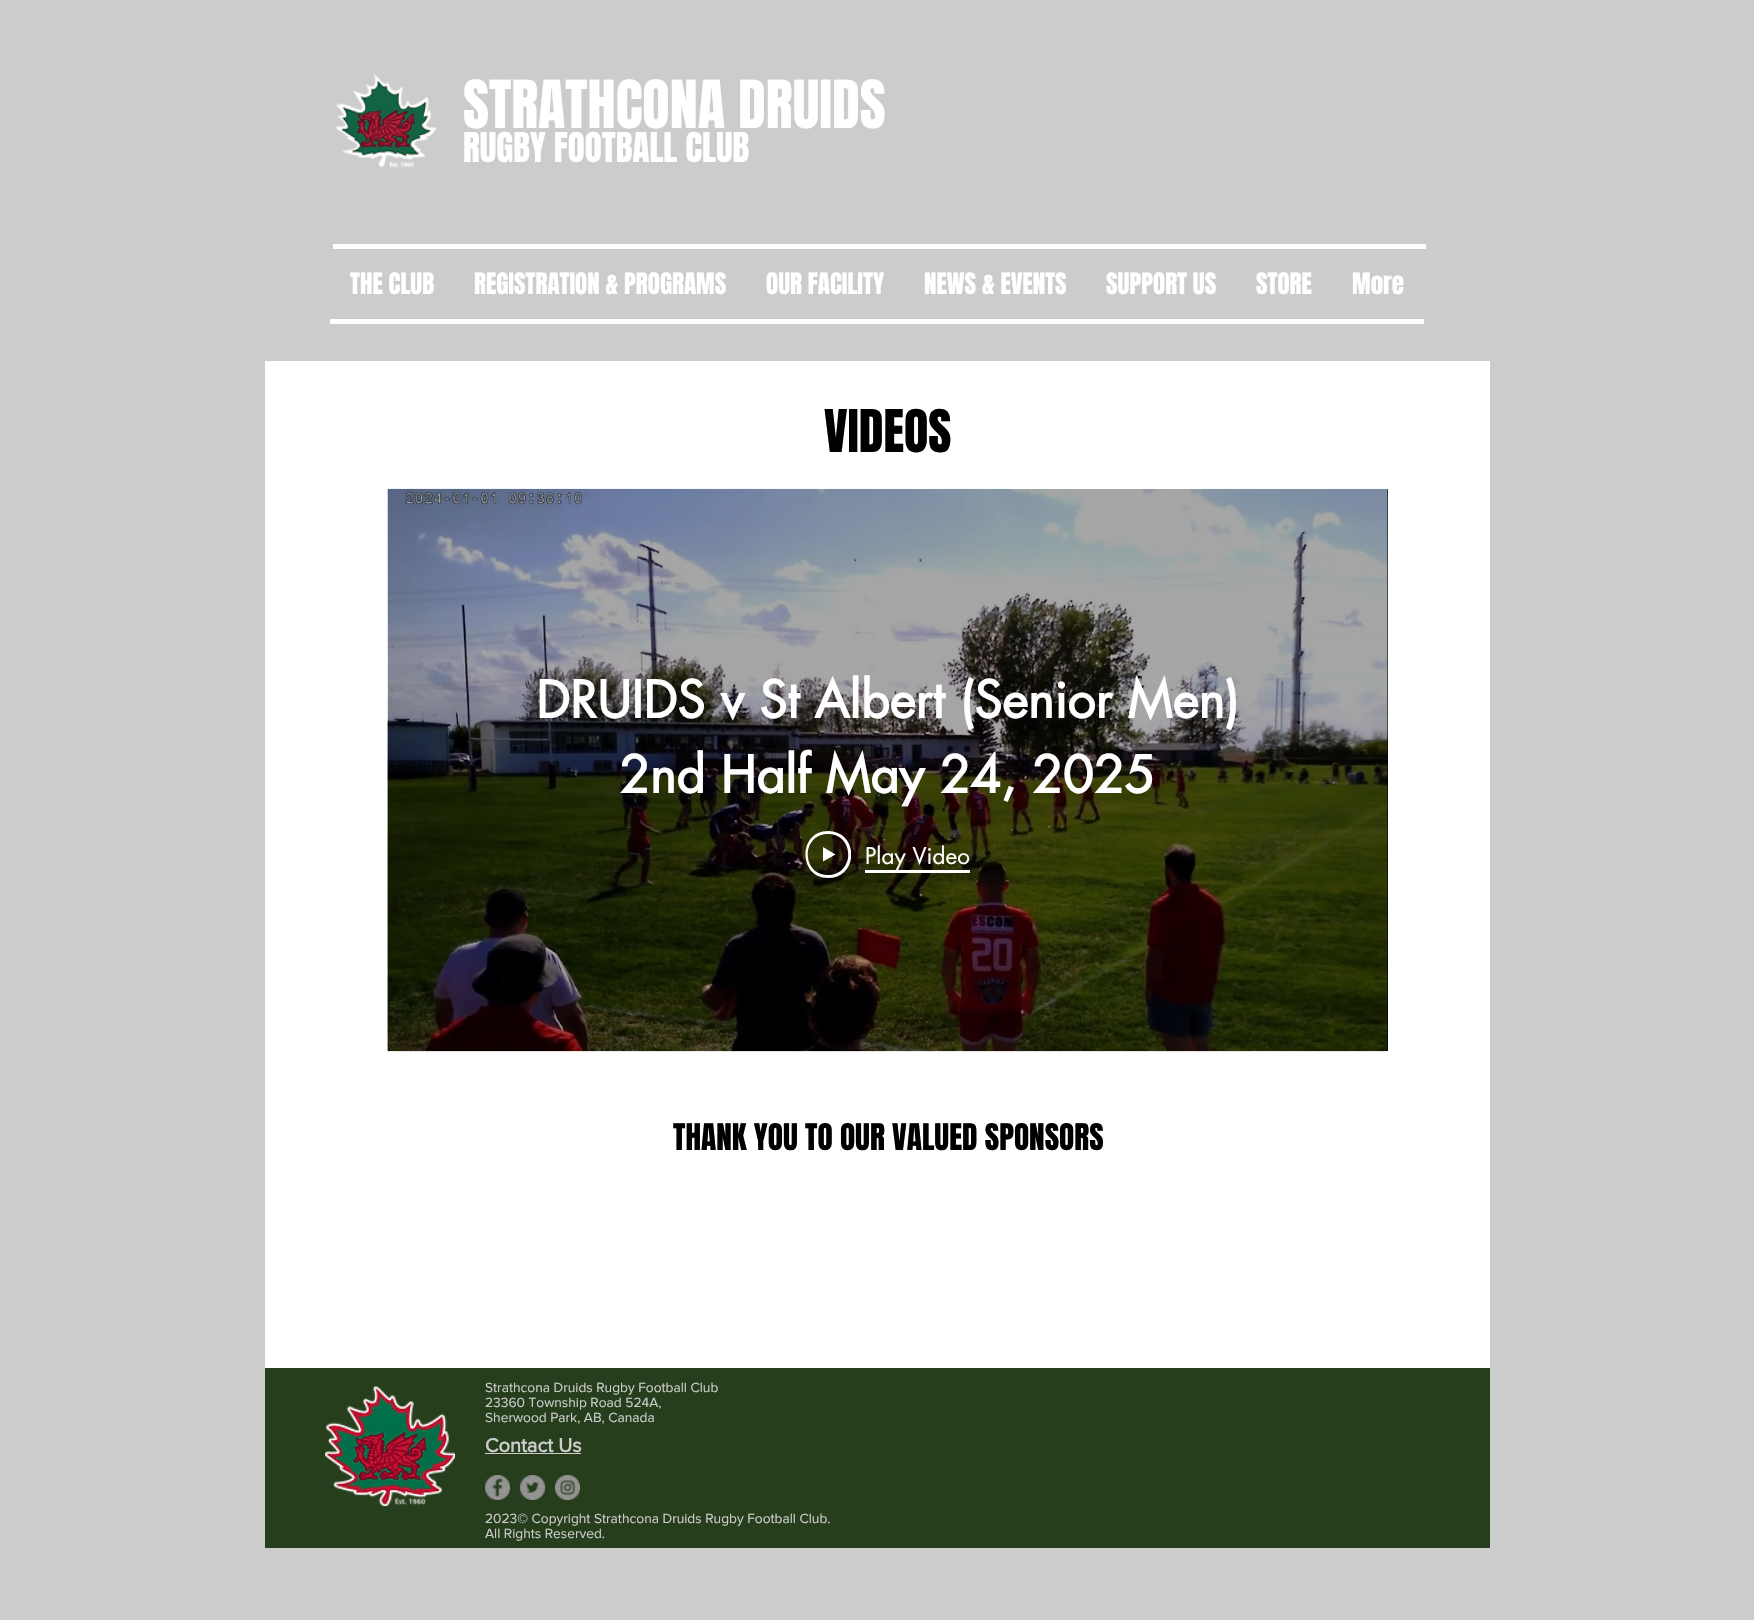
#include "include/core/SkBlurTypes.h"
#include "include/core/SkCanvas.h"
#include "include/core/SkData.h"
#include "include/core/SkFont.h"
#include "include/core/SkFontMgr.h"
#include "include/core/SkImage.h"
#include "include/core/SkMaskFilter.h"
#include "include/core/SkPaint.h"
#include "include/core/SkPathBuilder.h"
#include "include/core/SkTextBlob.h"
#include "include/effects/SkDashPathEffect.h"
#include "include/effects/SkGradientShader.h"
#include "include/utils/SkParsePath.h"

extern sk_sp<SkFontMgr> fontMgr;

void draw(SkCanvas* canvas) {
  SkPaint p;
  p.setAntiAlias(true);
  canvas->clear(SkColorSetRGB(204, 204, 204));
  canvas->drawImageRect(SkImages::DeferredFromEncodedData(SkData::MakeFromFileName("images/1.png")), SkRect::MakeLTRB(335, 74, 437, 168), SkSamplingOptions());
  p.setColor(SK_ColorWHITE);
  canvas->drawRect(SkRect::MakeLTRB(333, 244, 1426, 249), p);
  canvas->drawRect(SkRect::MakeLTRB(330, 319, 1424, 324), p);
  canvas->drawRect(SkRect::MakeLTRB(265, 361, 1490, 1368), p);
  p.setColor(SK_ColorBLACK);
  canvas->drawRect(SkRect::MakeLTRB(1387, 489, 1388, 1051), p);
  canvas->drawImageRect(SkImages::DeferredFromEncodedData(SkData::MakeFromFileName("images/2.png")), SkRect::MakeLTRB(387, 488, 1388, 1052), SkSamplingOptions());
  canvas->drawImageRect(SkImages::DeferredFromEncodedData(SkData::MakeFromFileName("images/3.png")), SkRect::MakeLTRB(387, 488, 1388, 1052), SkSamplingOptions());
  canvas->save();
  canvas->clipRect(SkRect::MakeLTRB(805, 831, 851, 878));
  p.setColor(SK_ColorWHITE);
  canvas->drawPath(SkPathBuilder(SkPathFillType::kEvenOdd).moveTo(828, 875).cubicTo(855, 875, 855, 834, 828, 834).cubicTo(801, 834, 801, 875, 828, 875).close().moveTo(828, 878).cubicTo(798, 878, 798, 831, 828, 831).cubicTo(859, 831, 859, 878, 828, 878).close().detach(), p);
  canvas->restore();
  canvas->drawPath(SkPathBuilder(SkPathFillType::kEvenOdd).moveTo(835.5f, 854.5f).lineTo(823, 861.5f).lineTo(823, 847).close().detach(), p);
  canvas->drawRect(SkRect::MakeLTRB(865, 870, 970, 873), p);
  p.setColor(SkColorSetRGB(39, 62, 28));
  canvas->drawRect(SkRect::MakeLTRB(265, 1368, 1490, 1548), p);
  canvas->drawImageRect(SkImages::DeferredFromEncodedData(SkData::MakeFromFileName("images/4.png")), SkRect::MakeLTRB(325, 1386, 455, 1507), SkSamplingOptions());
  p.setColor(SkColorSetRGB(204, 204, 204));
  canvas->drawRect(SkRect::MakeLTRB(485, 1453, 581, 1454), p);
  canvas->drawImageRect(SkImages::DeferredFromEncodedData(SkData::MakeFromFileName("images/5.png")), SkRect::MakeLTRB(485, 1475, 510, 1500), SkSamplingOptions());
  canvas->drawImageRect(SkImages::DeferredFromEncodedData(SkData::MakeFromFileName("images/6.png")), SkRect::MakeLTRB(520, 1475, 545, 1500), SkSamplingOptions());
  canvas->drawImageRect(SkImages::DeferredFromEncodedData(SkData::MakeFromFileName("images/7.png")), SkRect::MakeLTRB(555, 1475, 580, 1500), SkSamplingOptions());
  SkFont font1(fontMgr->matchFamilyStyle("Anton", SkFontStyle::Normal()), 56.25f);
  font1.setSubpixel(true);
  p.setColor(SK_ColorWHITE);
  canvas->drawString("STRATHCONA DRUIDS", 463, 128, font1, p);
  SkFont font2(fontMgr->matchFamilyStyle("Anton", SkFontStyle::Normal()), 35);
  font2.setSubpixel(true);
  canvas->drawString("RUGBY FOOTBALL CLUB", 463, 162, font2, p);
  SkFont font3(fontMgr->matchFamilyStyle("Anton", SkFontStyle::Normal()), 25);
  font3.setSubpixel(true);
  canvas->drawString("THE CLUB", 350, 294, font3, p);
  canvas->drawString("REGISTRATION & PROGRAMS", 474, 294, font3, p);
  canvas->drawString("OUR FACILITY", 766, 294, font3, p);
  canvas->drawString("NEWS & EVENTS", 924, 294, font3, p);
  canvas->drawString("SUPPORT US", 1106, 294, font3, p);
  canvas->drawString("STORE", 1256, 294, font3, p);
  canvas->drawString("More", 1352, 294, font3, p);
  SkFont font4(fontMgr->matchFamilyStyle("Anton", SkFontStyle::Normal()), 50);
  font4.setSubpixel(true);
  p.setColor(SK_ColorBLACK);
  canvas->drawString("VIDEOS", 824, 452, font4, p);
  SkFont font5(fontMgr->matchFamilyStyle("futura", SkFontStyle::Bold()), 50);
  font5.setSubpixel(true);
  p.setColor(SK_ColorWHITE);
  canvas->drawString("DRUIDS v St Albert (Senior Men)", 536, 718, font5, p);
  canvas->drawString("2nd Half May 24, 2025", 619, 793, font5, p);
  SkFont font6(fontMgr->matchFamilyStyle("futura", SkFontStyle::Normal()), 22.5f);
  font6.setSubpixel(true);
  canvas->drawString("Play Video", 865, 864, font6, p);
  SkFont font7(fontMgr->matchFamilyStyle("Anton", SkFontStyle::Normal()), 31.25f);
  font7.setSubpixel(true);
  p.setColor(SK_ColorBLACK);
  canvas->drawString("THANK YOU TO OUR VALUED SPONSORS", 673, 1150, font7, p);
  SkFont font8(fontMgr->matchFamilyStyle("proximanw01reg", SkFontStyle::Normal()), 13.75f);
  font8.setSubpixel(true);
  p.setColor(SkColorSetRGB(204, 204, 204));
  canvas->drawString("Strathcona Druids Rugby Football Club", 485, 1392, font8, p);
  canvas->drawString("23360 Township Road 524A,", 485, 1407, font8, p);
  canvas->drawString("Sherwood Park, AB, Canada", 485, 1422, font8, p);
  SkFont font9(fontMgr->matchFamilyStyle("proximanw01reg", SkFontStyle::Bold()), 20);
  font9.setSubpixel(true);
  canvas->drawString("Contact Us", 485, 1452, font9, p);
  canvas->drawString("2023© Copyright Strathcona Druids Rugby Football Club.", 485, 1523, font8, p);
  canvas->drawString("All Rights Reserved.", 485, 1538, font8, p);
}
